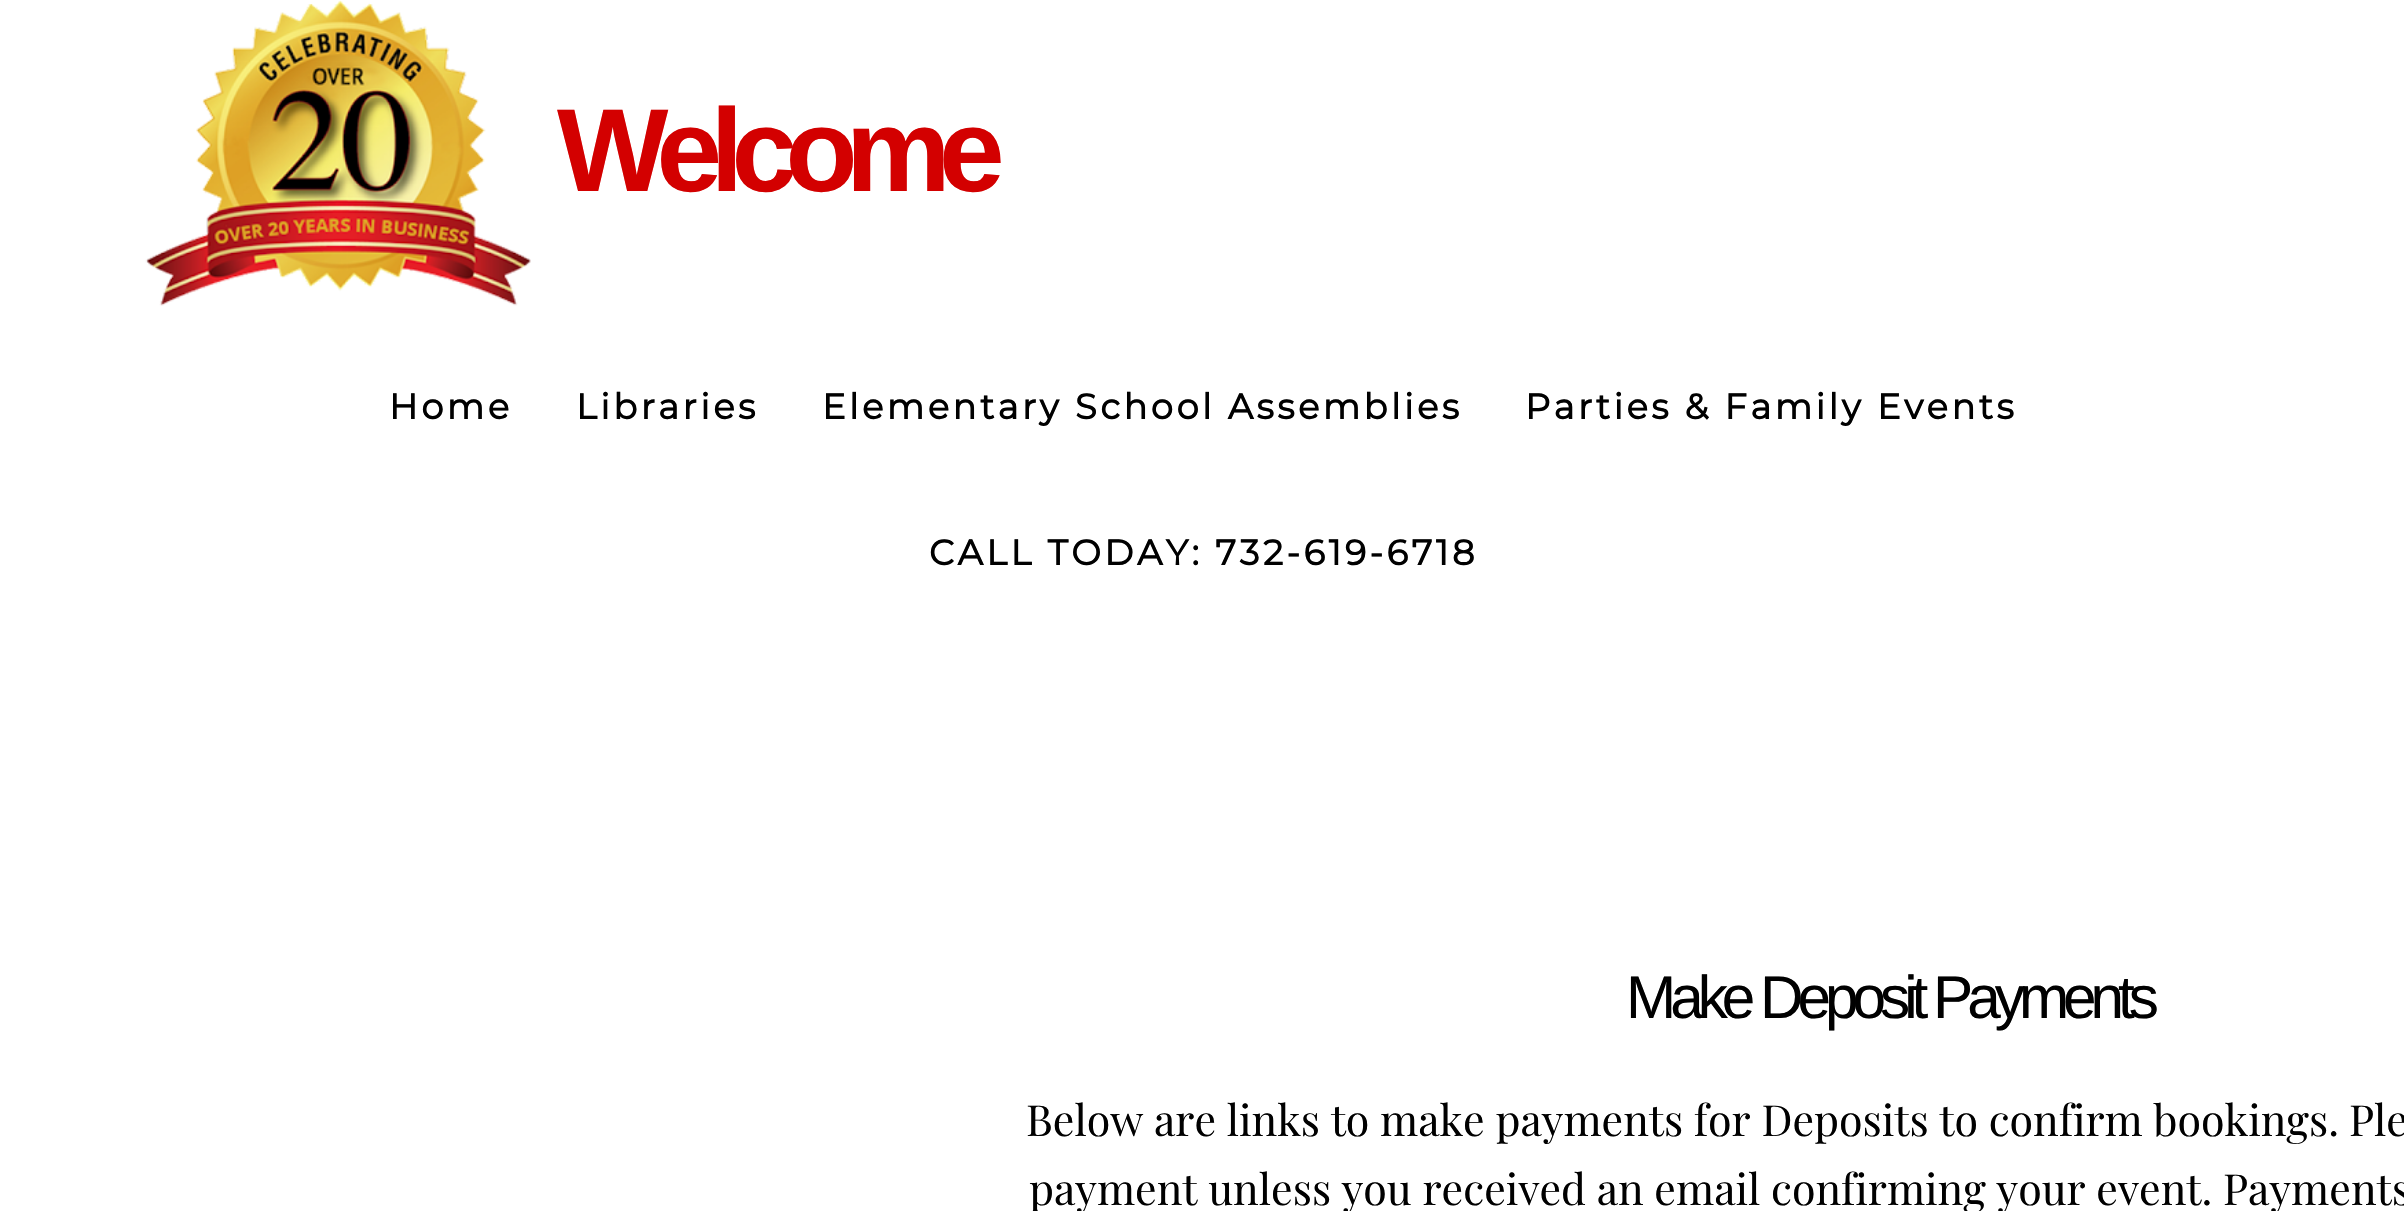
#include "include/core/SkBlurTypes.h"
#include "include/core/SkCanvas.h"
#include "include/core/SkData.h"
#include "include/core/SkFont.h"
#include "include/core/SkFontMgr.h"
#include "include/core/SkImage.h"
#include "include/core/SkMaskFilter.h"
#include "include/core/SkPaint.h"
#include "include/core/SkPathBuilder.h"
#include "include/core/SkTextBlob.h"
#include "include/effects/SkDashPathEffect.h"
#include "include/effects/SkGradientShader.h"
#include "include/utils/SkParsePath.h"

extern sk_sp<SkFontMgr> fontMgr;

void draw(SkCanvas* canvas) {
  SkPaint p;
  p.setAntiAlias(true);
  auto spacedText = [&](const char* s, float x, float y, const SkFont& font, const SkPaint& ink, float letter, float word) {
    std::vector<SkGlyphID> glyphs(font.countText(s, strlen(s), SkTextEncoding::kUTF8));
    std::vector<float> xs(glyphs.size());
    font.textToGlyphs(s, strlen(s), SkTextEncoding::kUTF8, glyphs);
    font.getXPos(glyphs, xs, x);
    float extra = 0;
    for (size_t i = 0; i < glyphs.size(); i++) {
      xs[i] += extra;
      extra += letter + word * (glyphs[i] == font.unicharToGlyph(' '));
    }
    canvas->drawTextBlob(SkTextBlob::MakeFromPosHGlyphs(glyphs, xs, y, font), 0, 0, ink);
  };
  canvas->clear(SK_ColorWHITE);
  canvas->drawImageRect(SkImages::DeferredFromEncodedData(SkData::MakeFromFileName("images/1.png")), SkRect::MakeLTRB(145, 0, 531, 306), SkSamplingOptions());
  SkFont font1(fontMgr->matchFamilyStyle("Liberation Sans", SkFontStyle::Bold()), 118);
  font1.setSubpixel(true);
  p.setColor(SkColorSetRGB(211, 0, 0));
  spacedText("Welcome", 557, 191, font1, p, -11.75f, 0);
  SkFont font2(fontMgr->matchFamilyStyle("Montserrat", SkFontStyle::Bold()), 35.25f);
  font2.setSubpixel(true);
  p.setColor(SK_ColorBLACK);
  spacedText("Home", 389, 419, font2, p, 3.5f, 0);
  spacedText("Libraries", 576, 419, font2, p, 3.5f, 0);
  spacedText("Elementary School Assemblies", 822, 419, font2, p, 3.5f, 0);
  spacedText("Parties & Family Events", 1525, 419, font2, p, 3.5f, 0);
  spacedText("CALL TODAY: 732-619-6718", 929, 565, font2, p, 3.5f, 0);
  SkFont font3(fontMgr->matchFamilyStyle("Liberation Sans", SkFontStyle::Normal()), 60.25f);
  font3.setSubpixel(true);
  spacedText("Make Deposit Payments", 1626, 1018, font3, p, -6, 0);
  SkFont font4(fontMgr->matchFamilyStyle("Playfair Display", SkFontStyle::Normal()), 42.9f);
  font4.setSubpixel(true);
  canvas->drawString("Below are links to make payments for Deposits to confirm bookings.", 1026, 1136, font4, p);
  canvas->drawString("Ple", 2349, 1136, font4, p);
  canvas->drawString("payment unless you received an email confirming your event.", 1029, 1205, font4, p);
  canvas->drawString("Payments", 2223, 1205, font4, p);
}
